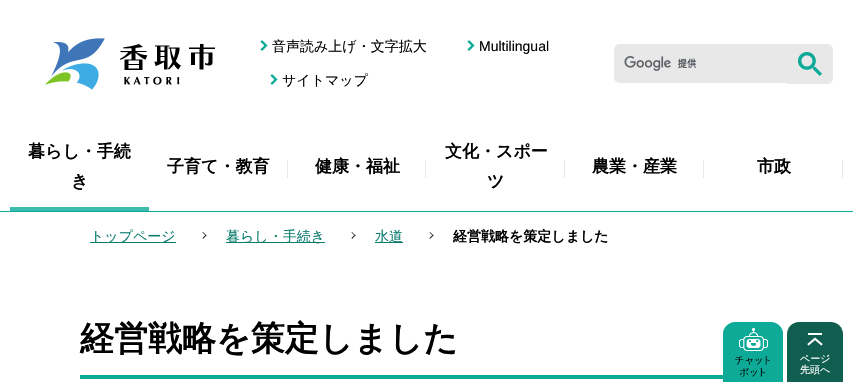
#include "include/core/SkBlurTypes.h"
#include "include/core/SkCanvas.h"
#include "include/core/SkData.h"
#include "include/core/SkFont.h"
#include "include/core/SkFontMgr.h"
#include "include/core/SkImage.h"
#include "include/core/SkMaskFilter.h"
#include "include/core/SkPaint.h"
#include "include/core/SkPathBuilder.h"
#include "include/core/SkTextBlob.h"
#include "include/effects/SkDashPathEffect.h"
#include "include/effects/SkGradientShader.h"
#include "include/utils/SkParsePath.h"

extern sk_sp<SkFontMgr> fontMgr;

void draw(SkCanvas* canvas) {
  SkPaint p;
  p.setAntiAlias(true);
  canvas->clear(SK_ColorWHITE);
  p.setColor(SkColorSetRGB(12, 170, 151));
  canvas->drawRect(SkRect::MakeLTRB(0, 211, 853, 212), p);
  canvas->drawImageRect(SkImages::DeferredFromEncodedData(SkData::MakeFromFileName("images/1.png")), SkRect::MakeLTRB(45, 38, 215, 90), SkSamplingOptions());
  canvas->drawImageRect(SkImages::DeferredFromEncodedData(SkData::MakeFromFileName("images/2.png")), SkRect::MakeLTRB(260, 40, 268, 51), SkSamplingOptions());
  canvas->drawImageRect(SkImages::DeferredFromEncodedData(SkData::MakeFromFileName("images/2.png")), SkRect::MakeLTRB(467, 40, 475, 51), SkSamplingOptions());
  canvas->drawImageRect(SkImages::DeferredFromEncodedData(SkData::MakeFromFileName("images/2.png")), SkRect::MakeLTRB(270, 74, 278, 85), SkSamplingOptions());
  p.setColor(SkColorSetRGB(232, 232, 232));
  canvas->drawPath(SkPathBuilder().moveTo(620, 44).lineTo(787, 44).lineTo(787, 83).lineTo(620, 83).cubicTo(616.5f, 83, 614, 80.5f, 614, 77).lineTo(614, 50).cubicTo(614, 46.5f, 616.5f, 44, 620, 44).close().detach(), p);
  canvas->drawImageRect(SkImages::DeferredFromEncodedData(SkData::MakeFromFileName("images/3.png")), SkRect::MakeLTRB(624, 56, 697, 71), SkSamplingOptions());
  canvas->drawPath(SkPathBuilder().moveTo(787, 44).lineTo(827, 44).cubicTo(830.5f, 44, 833, 46.5f, 833, 50).lineTo(833, 78).cubicTo(833, 81.5f, 830.5f, 84, 827, 84).lineTo(787, 84).close().detach(), p);
  canvas->drawImageRect(SkImages::DeferredFromEncodedData(SkData::MakeFromFileName("images/4.png")), SkRect::MakeLTRB(798, 52, 822, 76), SkSamplingOptions());
  p.setColor(SkColorSetRGB(61, 187, 172));
  canvas->drawRect(SkRect::MakeLTRB(10, 207, 149, 211), p);
  p.setColor(SkColorSetRGB(232, 232, 232));
  canvas->drawRect(SkRect::MakeLTRB(287, 160, 288, 178), p);
  canvas->drawRect(SkRect::MakeLTRB(425, 160, 426, 178), p);
  canvas->drawRect(SkRect::MakeLTRB(564, 160, 565, 178), p);
  canvas->drawRect(SkRect::MakeLTRB(703, 160, 704, 178), p);
  canvas->drawRect(SkRect::MakeLTRB(842, 160, 843, 178), p);
  p.setColor(SkColorSetRGB(10, 124, 110));
  canvas->drawRect(SkRect::MakeLTRB(90, 242, 176, 243), p);
  p.setColor(SkColorSetRGB(34, 34, 34));
  canvas->drawPath(SkPathBuilder().moveTo(203, 232).lineTo(206.5f, 235.5f).lineTo(206, 236).lineTo(202.5f, 232.5f).close().detach(), p);
  canvas->drawPath(SkPathBuilder().moveTo(206, 234.5f).lineTo(206.5f, 235.5f).lineTo(203, 239).lineTo(202.5f, 238).close().detach(), p);
  p.setColor(SkColorSetRGB(10, 124, 110));
  canvas->drawRect(SkRect::MakeLTRB(226, 242, 325, 243), p);
  p.setColor(SkColorSetRGB(34, 34, 34));
  canvas->drawPath(SkPathBuilder().moveTo(352, 232).lineTo(355.5f, 235.5f).lineTo(355, 236).lineTo(351.5f, 232.5f).close().detach(), p);
  canvas->drawPath(SkPathBuilder().moveTo(355, 234.5f).lineTo(355.5f, 235.5f).lineTo(352, 239).lineTo(351.5f, 238).close().detach(), p);
  p.setColor(SkColorSetRGB(10, 124, 110));
  canvas->drawRect(SkRect::MakeLTRB(375, 242, 403, 243), p);
  p.setColor(SkColorSetRGB(34, 34, 34));
  canvas->drawPath(SkPathBuilder().moveTo(430, 232).lineTo(433.5f, 235.5f).lineTo(433, 236).lineTo(429.5f, 232.5f).close().detach(), p);
  canvas->drawPath(SkPathBuilder().moveTo(433, 234.5f).lineTo(433.5f, 235.5f).lineTo(430, 239).lineTo(429.5f, 238).close().detach(), p);
  p.setColor(SkColorSetRGB(12, 170, 151));
  canvas->drawRect(SkRect::MakeLTRB(80, 375, 723, 379), p);
  p.setColor(SkColorSetRGB(16, 94, 79));
  canvas->drawPath(SkPathBuilder().moveTo(799, 322).lineTo(831, 322).cubicTo(837.5f, 322, 843, 327.5f, 843, 334).lineTo(843, 382).lineTo(787, 382).lineTo(787, 334).cubicTo(787, 327.5f, 792.5f, 322, 799, 322).close().detach(), p);
  canvas->drawImageRect(SkImages::DeferredFromEncodedData(SkData::MakeFromFileName("images/5.png")), SkRect::MakeLTRB(807, 333, 823, 346), SkSamplingOptions());
  canvas->drawImageRect(SkImages::DeferredFromEncodedData(SkData::MakeFromFileName("images/6.png")), SkRect::MakeLTRB(723, 322, 783, 382), SkSamplingOptions());
  SkFont font1(fontMgr->matchFamilyStyle("WenQuanYi Zen Hei", SkFontStyle(500, SkFontStyle::kNormal_Width, SkFontStyle::kUpright_Slant)), 14);
  font1.setSubpixel(true);
  p.setColor(SK_ColorBLACK);
  canvas->drawString("音声読み上げ・文字拡大", 272, 51, font1, p);
  SkFont font2(fontMgr->matchFamilyStyle("Liberation Sans", SkFontStyle::Normal()), 14);
  font2.setSubpixel(true);
  canvas->drawString("Multilingual", 479, 51, font2, p);
  canvas->drawString("サイトマップ", 282, 85, font1, p);
  SkFont font3(fontMgr->matchFamilyStyle("WenQuanYi Zen Hei", SkFontStyle::Bold()), 17);
  font3.setSubpixel(true);
  canvas->drawString("暮らし・手続", 28, 157, font3, p);
  canvas->drawString("き", 71, 187, font3, p);
  canvas->drawString("子育て・教育", 167, 172, font3, p);
  canvas->drawString("健康・福祉", 315, 172, font3, p);
  canvas->drawString("文化・スポー", 445, 157, font3, p);
  canvas->drawString("ツ", 487, 187, font3, p);
  canvas->drawString("農業・産業", 592, 172, font3, p);
  canvas->drawString("市政", 757, 172, font3, p);
  p.setColor(SkColorSetRGB(10, 124, 110));
  canvas->drawString("トップページ", 90, 241, font1, p);
  canvas->drawString("暮らし・手続き", 226, 241, font1, p);
  canvas->drawString("水道", 375, 241, font1, p);
  SkFont font4(fontMgr->matchFamilyStyle("WenQuanYi Zen Hei", SkFontStyle::Bold()), 14);
  font4.setSubpixel(true);
  p.setColor(SK_ColorBLACK);
  canvas->drawString("経営戦略を策定しました", 453, 241, font4, p);
  SkFont font5(fontMgr->matchFamilyStyle("WenQuanYi Zen Hei", SkFontStyle::Bold()), 34);
  font5.setSubpixel(true);
  canvas->drawString("経営戦略を策定しました", 80, 350, font5, p);
  SkFont font6(fontMgr->matchFamilyStyle("WenQuanYi Zen Hei", SkFontStyle(500, SkFontStyle::kNormal_Width, SkFontStyle::kUpright_Slant)), 10);
  font6.setSubpixel(true);
  p.setColor(SK_ColorWHITE);
  canvas->drawString("ページ", 800, 362, font6, p);
  canvas->drawString("先頭へ", 800, 373, font6, p);
}
